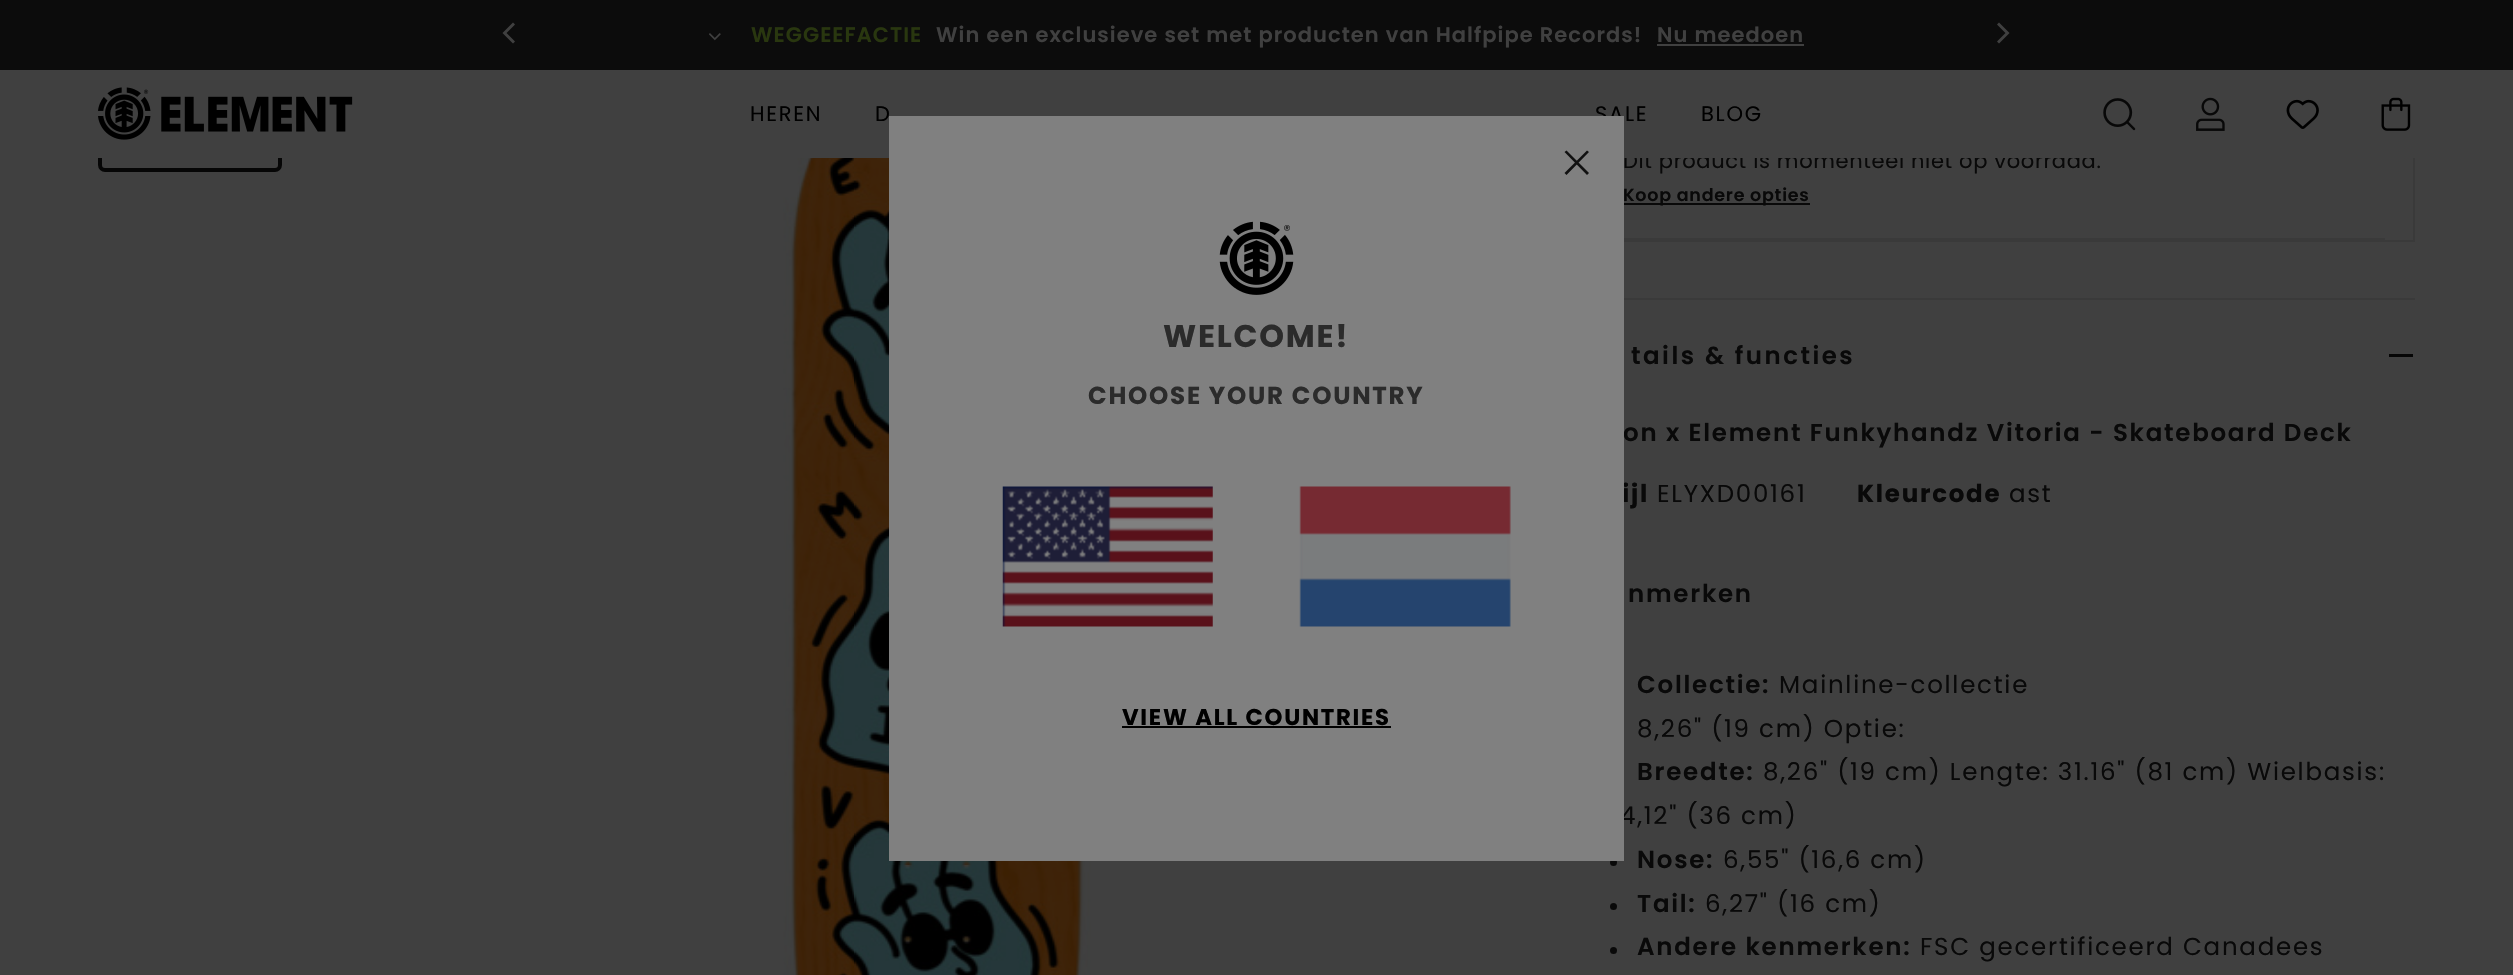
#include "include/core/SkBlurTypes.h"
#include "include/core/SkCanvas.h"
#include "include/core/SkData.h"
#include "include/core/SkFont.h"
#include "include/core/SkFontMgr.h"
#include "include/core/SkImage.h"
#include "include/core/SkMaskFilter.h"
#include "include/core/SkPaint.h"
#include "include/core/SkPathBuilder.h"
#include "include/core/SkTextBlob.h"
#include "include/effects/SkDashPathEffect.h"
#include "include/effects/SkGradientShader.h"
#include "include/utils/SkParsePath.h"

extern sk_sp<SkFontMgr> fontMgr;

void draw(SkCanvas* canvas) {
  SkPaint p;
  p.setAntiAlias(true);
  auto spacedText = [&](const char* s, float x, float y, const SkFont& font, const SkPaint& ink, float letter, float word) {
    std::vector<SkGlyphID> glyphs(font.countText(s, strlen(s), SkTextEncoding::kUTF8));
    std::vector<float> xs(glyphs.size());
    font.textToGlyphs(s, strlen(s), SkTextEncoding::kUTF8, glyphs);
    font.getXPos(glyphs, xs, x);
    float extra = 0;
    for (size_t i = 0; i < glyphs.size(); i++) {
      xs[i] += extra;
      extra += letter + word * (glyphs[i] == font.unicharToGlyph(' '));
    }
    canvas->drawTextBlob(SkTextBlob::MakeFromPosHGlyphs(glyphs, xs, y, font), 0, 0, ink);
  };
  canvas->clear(SkColorSetRGB(64, 64, 64));
  p.setStyle(SkPaint::kStroke_Style);
  p.setStrokeWidth(4);
  p.setColor(SkColorSetRGB(6, 6, 6));
  canvas->drawRoundRect(SkRect::MakeLTRB(100, -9, 280, 170), 5, 5, p);
  p.setStyle(SkPaint::kFill_Style);
  p.setColor(SkColorSetRGB(12, 12, 12));
  canvas->drawRect(SkRect::MakeLTRB(0, 0, 2513, 70), p);
  p.setColor(SkColorSetRGB(64, 64, 64));
  canvas->drawPath(SkPathBuilder().moveTo(515, 41.5f).lineTo(513, 43.5f).lineTo(502.5f, 33).lineTo(513, 22.5f).lineTo(515, 24.5f).lineTo(506.5f, 33).close().detach(), p);
  canvas->drawImageRect(SkImages::DeferredFromEncodedData(SkData::MakeFromFileName("images/1.png")), SkRect::MakeLTRB(709, 33, 721, 41), SkSamplingOptions());
  canvas->drawRect(SkRect::MakeLTRB(1657, 44, 1804, 46), p);
  canvas->drawPath(SkPathBuilder().moveTo(1997, 41.5f).lineTo(1999, 43.5f).lineTo(2009.5f, 33).lineTo(1999, 22.5f).lineTo(1997, 24.5f).lineTo(2005.5f, 33).close().detach(), p);
  canvas->drawImageRect(SkImages::DeferredFromEncodedData(SkData::MakeFromFileName("images/8.png")), SkRect::MakeLTRB(783, 158, 1091, 975), SkSamplingOptions());
  p.setStyle(SkPaint::kStroke_Style);
  p.setStrokeWidth(2);
  p.setColor(SkColorSetRGB(58, 58, 58));
  canvas->drawRect(SkRect::MakeLTRB(1594, 118, 2414, 241), p);
  p.setStyle(SkPaint::kFill_Style);
  canvas->drawRect(SkRect::MakeLTRB(1622, 238, 2385, 240), p);
  p.setColor(SkColorSetRGB(9, 9, 9));
  canvas->drawRect(SkRect::MakeLTRB(1622, 203, 1810, 205), p);
  p.setColor(SkColorSetRGB(58, 58, 58));
  canvas->drawRect(SkRect::MakeLTRB(1624, 298, 2415, 300), p);
  p.setColor(SkColorSetRGB(6, 6, 6));
  canvas->drawRect(SkRect::MakeLTRB(2389, 354, 2413, 357), p);
  p.setColor(SkColorSetRGB(9, 9, 9));
  canvas->drawCircle(1613.5f, 862.5f, 3.5f, p);
  canvas->drawCircle(1613.5f, 906.5f, 3.5f, p);
  canvas->drawCircle(1613.5f, 950.5f, 3.5f, p);
  SkFont font1(fontMgr->matchFamilyStyle("Poppins", SkFontStyle(600, SkFontStyle::kNormal_Width, SkFontStyle::kUpright_Slant)), 21);
  font1.setSubpixel(true);
  p.setColor(SkColorSetRGB(41, 55, 15));
  spacedText("WEGGEEFACTIE", 751, 42, font1, p, 1.05f, 0);
  p.setColor(SkColorSetRGB(64, 64, 64));
  spacedText("Win een exclusieve set met producten van Halfpipe Records!", 936, 42, font1, p, 1.05f, 0);
  spacedText("Nu meedoen", 1657, 42, font1, p, 1.05f, 0);
  SkFont font2(fontMgr->matchFamilyStyle("Poppins", SkFontStyle::Normal()), 21);
  font2.setSubpixel(true);
  p.setColor(SkColorSetRGB(9, 9, 9));
  spacedText("Dit product is momenteel niet op voorraad.", 1623, 168, font2, p, 0.65f, 0);
  p.setColor(SkColorSetRGB(64, 64, 64));
  canvas->drawRect(SkRect::MakeLTRB(98, 70, 2415, 158), p);
  canvas->drawImageRect(SkImages::DeferredFromEncodedData(SkData::MakeFromFileName("images/4.png")), SkRect::MakeLTRB(2103, 98, 2136, 131), SkSamplingOptions());
  canvas->drawImageRect(SkImages::DeferredFromEncodedData(SkData::MakeFromFileName("images/7.png")), SkRect::MakeLTRB(2381, 97, 2411, 131), SkSamplingOptions());
  canvas->drawImageRect(SkImages::DeferredFromEncodedData(SkData::MakeFromFileName("images/6.png")), SkRect::MakeLTRB(2286, 99, 2319, 129), SkSamplingOptions());
  canvas->drawImageRect(SkImages::DeferredFromEncodedData(SkData::MakeFromFileName("images/5.png")), SkRect::MakeLTRB(2196, 97, 2225, 131), SkSamplingOptions());
  p.setColor(SK_ColorBLACK);
  spacedText("BLOG", 1701, 121, font2, p, 1.75f, 0);
  spacedText("SALE", 1595, 121, font2, p, 1.75f, 0);
  spacedText("D", 875, 121, font2, p, 1.75f, 0);
  spacedText("HEREN", 750, 121, font2, p, 1.75f, 0);
  canvas->drawImageRect(SkImages::DeferredFromEncodedData(SkData::MakeFromFileName("images/3.png")), SkRect::MakeLTRB(161, 96, 353, 132), SkSamplingOptions());
  canvas->drawImageRect(SkImages::DeferredFromEncodedData(SkData::MakeFromFileName("images/2.png")), SkRect::MakeLTRB(98, 87, 151, 140), SkSamplingOptions());
  SkFont font3(fontMgr->matchFamilyStyle("Poppins", SkFontStyle(600, SkFontStyle::kNormal_Width, SkFontStyle::kUpright_Slant)), 17.5f);
  font3.setSubpixel(true);
  p.setColor(SkColorSetRGB(9, 9, 9));
  spacedText("Koop andere opties", 1623, 201, font3, p, 0.75f, 0);
  SkFont font4(fontMgr->matchFamilyStyle("Poppins", SkFontStyle(600, SkFontStyle::kNormal_Width, SkFontStyle::kUpright_Slant)), 24.5f);
  font4.setSubpixel(true);
  spacedText("tails & functies", 1631, 364, font4, p, 2.5f, 0);
  spacedText("on x Element Funkyhandz Vitoria - Skateboard Deck", 1623, 441, font4, p, 1.75f, 0);
  SkFont font5(fontMgr->matchFamilyStyle("Poppins", SkFontStyle::Bold()), 24.5f);
  font5.setSubpixel(true);
  spacedText("ijl", 1622, 502, font5, p, 1.75f, 0);
  SkFont font6(fontMgr->matchFamilyStyle("Poppins", SkFontStyle::Normal()), 24.5f);
  font6.setSubpixel(true);
  spacedText("ELYXD00161", 1657, 502, font6, p, 1.75f, 0);
  spacedText("Kleurcode", 1857, 502, font5, p, 1.75f, 0);
  spacedText("ast", 2009, 502, font6, p, 1.75f, 0);
  spacedText("nmerken", 1628, 602, font4, p, 1.75f, 0);
  spacedText("Collectie:", 1637, 693, font4, p, 1.75f, 0);
  spacedText("Mainline-collectie", 1779, 693, font6, p, 1.75f, 0);
  spacedText("8,26\" (19 cm) Optie:", 1637, 737, font6, p, 1.75f, 0);
  spacedText("Breedte:", 1637, 780, font4, p, 1.75f, 0);
  spacedText("8,26\" (19 cm) Lengte: 31.16\" (81 cm) Wielbasis:", 1763, 780, font6, p, 1.75f, 0);
  spacedText("4,12\" (36 cm)", 1620, 824, font6, p, 1.75f, 0);
  spacedText("Nose:", 1637, 868, font4, p, 1.75f, 0);
  spacedText("6,55\" (16,6 cm)", 1723, 868, font6, p, 1.75f, 0);
  spacedText("Tail:", 1637, 912, font4, p, 1.75f, 0);
  spacedText("6,27\" (16 cm)", 1705, 912, font6, p, 1.75f, 0);
  spacedText("Andere kenmerken:", 1637, 955, font4, p, 1.75f, 0);
  spacedText("FSC gecertificeerd Canadees", 1920, 955, font6, p, 1.75f, 0);
  p.setColor(SkColorSetRGB(128, 128, 128));
  canvas->drawRect(SkRect::MakeLTRB(889, 116, 1624, 861), p);
  p.setColor(SkColorSetRGB(17, 17, 17));
  canvas->drawPath(SkPathBuilder().moveTo(1564.5f, 152).lineTo(1587, 175).lineTo(1589, 173).lineTo(1566.5f, 150.5f).close().moveTo(1587, 150.5f).lineTo(1564.5f, 173).lineTo(1566.5f, 175).lineTo(1589, 152).close().detach(), p);
  canvas->drawImageRect(SkImages::DeferredFromEncodedData(SkData::MakeFromFileName("images/9.png")), SkRect::MakeLTRB(1219, 221, 1294, 295), SkSamplingOptions());
  SkFont font7(fontMgr->matchFamilyStyle("Poppins", SkFontStyle::Bold()), 31.5f);
  font7.setSubpixel(true);
  p.setColor(SkColorSetRGB(43, 43, 43));
  spacedText("WELCOME!", 1163, 347, font7, p, 1.75f, 0);
  spacedText("CHOOSE YOUR COUNTRY", 1088, 404, font5, p, 1.75f, 0);
  canvas->drawImageRect(SkImages::DeferredFromEncodedData(SkData::MakeFromFileName("images/10.png")), SkRect::MakeLTRB(1002, 486, 1213, 627), SkSamplingOptions());
  canvas->drawImageRect(SkImages::DeferredFromEncodedData(SkData::MakeFromFileName("images/11.png")), SkRect::MakeLTRB(1299, 486, 1511, 627), SkSamplingOptions());
  SkFont font8(fontMgr->matchFamilyStyle("Poppins", SkFontStyle::Bold()), 22.75f);
  font8.setSubpixel(true);
  p.setColor(SK_ColorBLACK);
  spacedText("VIEW ALL COUNTRIES", 1122, 725, font8, p, 1.75f, 0);
  canvas->drawRect(SkRect::MakeLTRB(1122, 726, 1391, 728), p);
}
